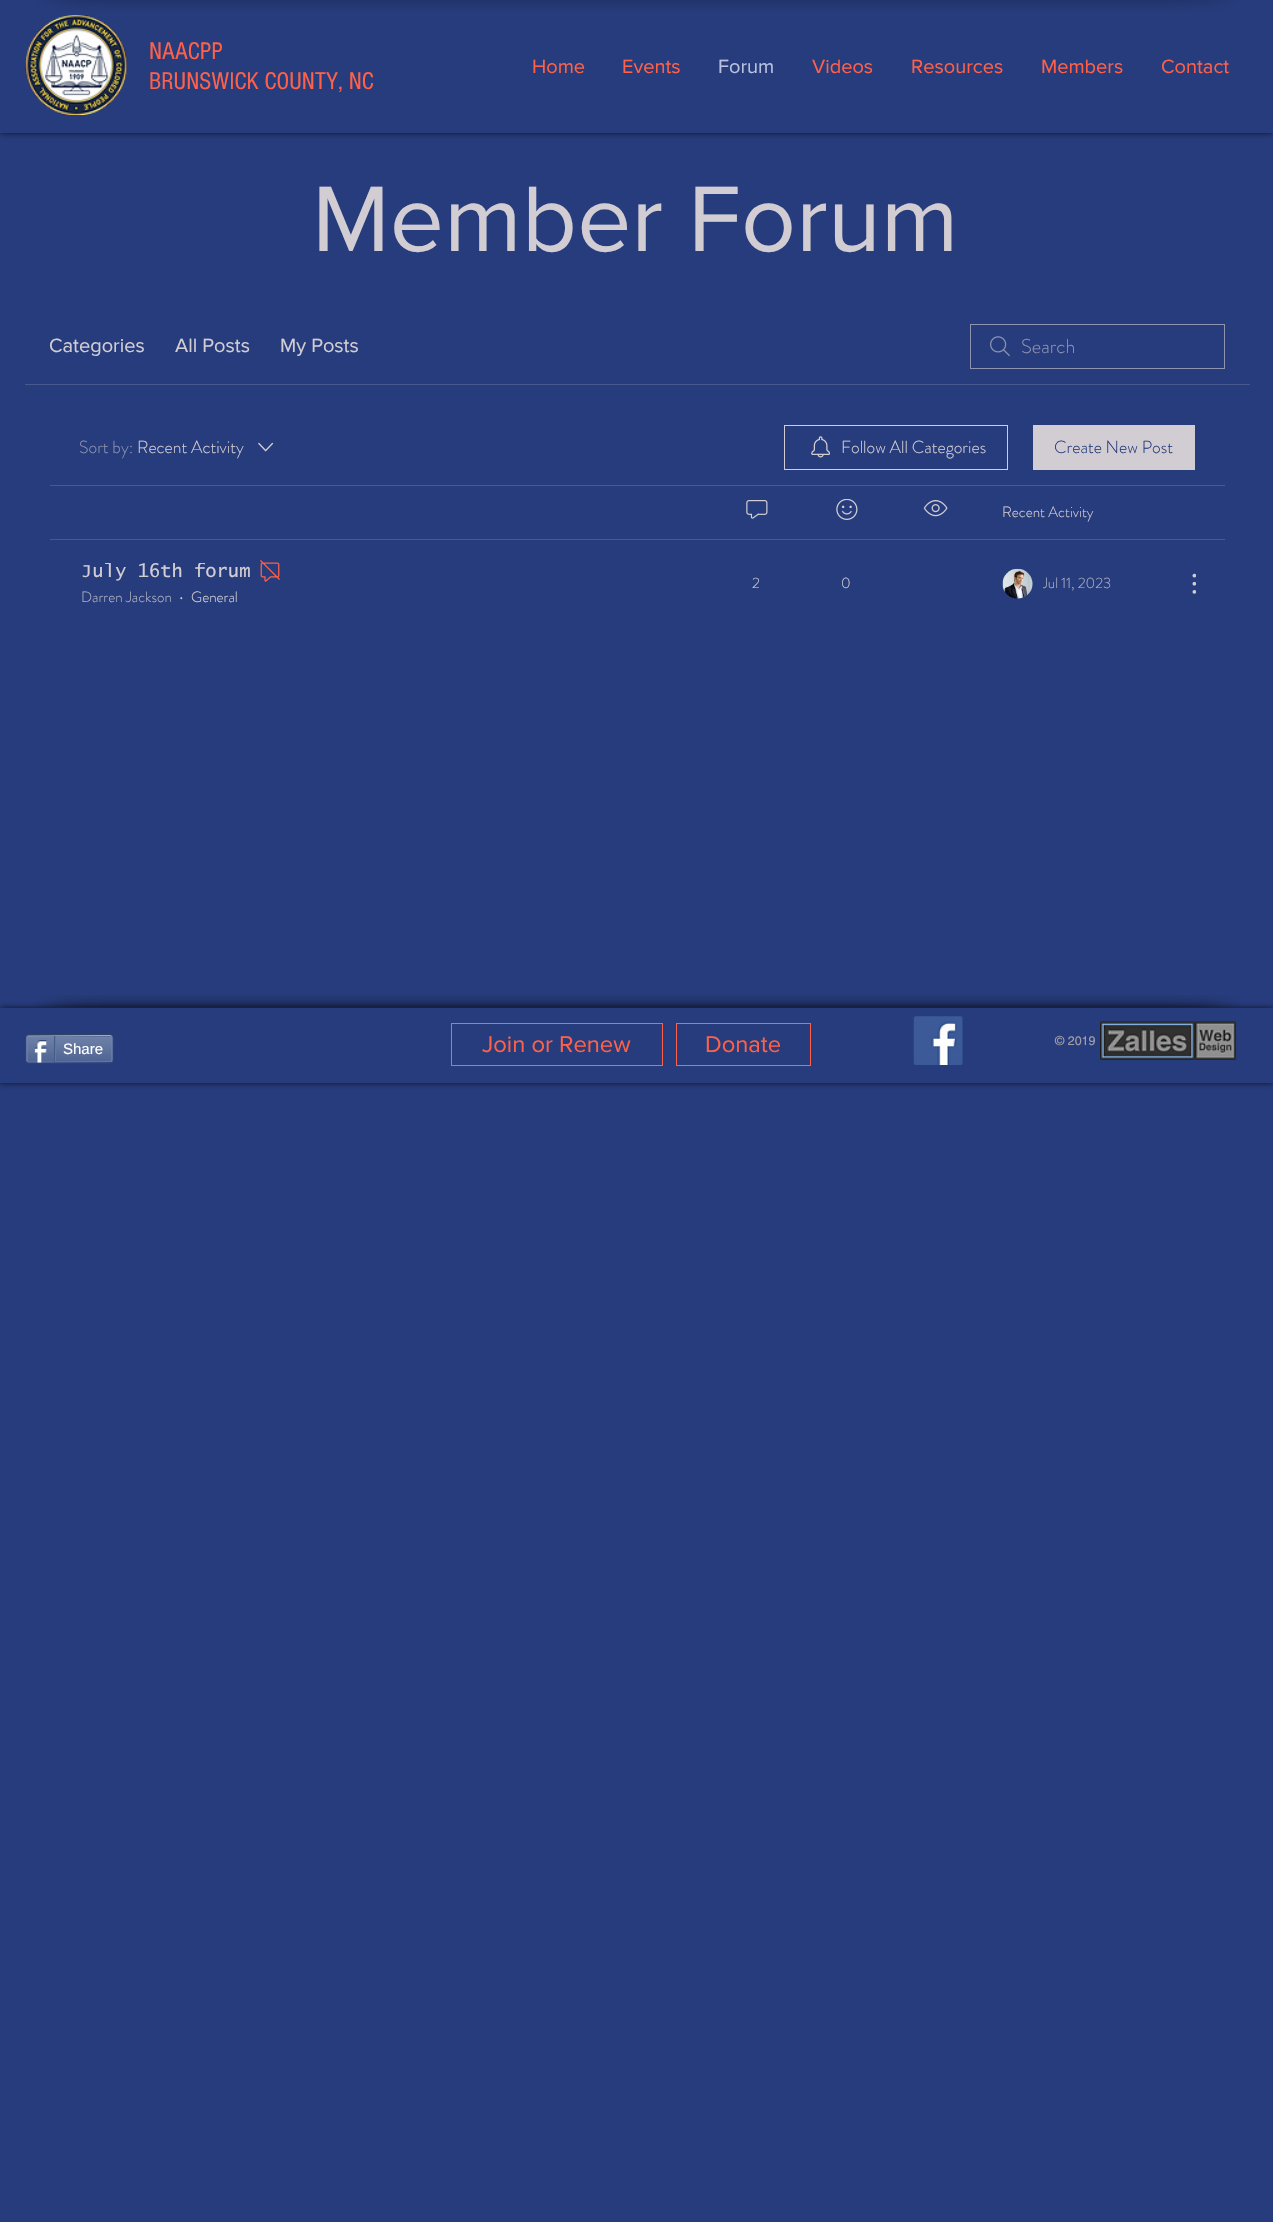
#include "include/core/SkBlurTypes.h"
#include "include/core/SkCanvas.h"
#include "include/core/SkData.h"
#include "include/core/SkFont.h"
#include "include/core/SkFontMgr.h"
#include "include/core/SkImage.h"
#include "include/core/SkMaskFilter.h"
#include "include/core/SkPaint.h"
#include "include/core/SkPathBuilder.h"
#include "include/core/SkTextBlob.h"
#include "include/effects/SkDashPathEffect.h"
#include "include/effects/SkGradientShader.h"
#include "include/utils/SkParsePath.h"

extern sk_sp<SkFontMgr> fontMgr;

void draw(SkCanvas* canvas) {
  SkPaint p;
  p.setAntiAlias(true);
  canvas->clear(SkColorSetRGB(39, 60, 125));
  canvas->drawImageRect(SkImages::DeferredFromEncodedData(SkData::MakeFromFileName("images/1.png")), SkRect::MakeLTRB(33, 0, 150, 13), SkSamplingOptions());
  canvas->drawImageRect(SkImages::DeferredFromEncodedData(SkData::MakeFromFileName("images/2.png")), SkRect::MakeLTRB(150, 0, 1125, 13), SkSamplingOptions());
  canvas->drawImageRect(SkImages::DeferredFromEncodedData(SkData::MakeFromFileName("images/3.png")), SkRect::MakeLTRB(1125, 0, 1242, 13), SkSamplingOptions());
  canvas->save();
  canvas->clipPath(SkPathBuilder(SkPathFillType::kEvenOdd).moveTo(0, 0).lineTo(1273, 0).lineTo(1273, 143).lineTo(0, 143).close().moveTo(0, 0).lineTo(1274, 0).lineTo(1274, 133).lineTo(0, 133).close().detach(), true);
  p.setColor(SkColorSetARGB(179, 0, 0, 0));
  p.setMaskFilter(SkMaskFilter::MakeBlur(kNormal_SkBlurStyle, 3));
  canvas->drawRect(SkRect::MakeLTRB(0, 0, 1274, 133), p);
  p.setMaskFilter(nullptr);
  canvas->restore();
  p.setColor(SkColorSetARGB(153, 39, 60, 125));
  canvas->drawRect(SkRect::MakeLTRB(0, 0, 1273, 133), p);
  canvas->drawImageRect(SkImages::DeferredFromEncodedData(SkData::MakeFromFileName("images/4.png")), SkRect::MakeLTRB(25, 15, 128, 115), SkSamplingOptions());
  p.setColor(SkColorSetRGB(73, 89, 142));
  canvas->drawRect(SkRect::MakeLTRB(25, 384, 1250, 385), p);
  canvas->drawImageRect(SkImages::DeferredFromEncodedData(SkData::MakeFromFileName("images/5.png")), SkRect::MakeLTRB(990, 336, 1010, 357), SkSamplingOptions());
  p.setStyle(SkPaint::kStroke_Style);
  p.setStrokeWidth(1);
  p.setColor(SkColorSetRGB(142, 147, 176));
  canvas->drawRect(SkRect::MakeLTRB(970.5f, 324.5f, 1224.5f, 368.5f), p);
  canvas->drawImageRect(SkImages::DeferredFromEncodedData(SkData::MakeFromFileName("images/6.png")), SkRect::MakeLTRB(258, 442, 274, 452), SkSamplingOptions());
  p.setColor(SkColorSetRGB(210, 205, 210));
  canvas->drawRect(SkRect::MakeLTRB(784.5f, 425.5f, 1007.5f, 469.5f), p);
  canvas->drawImageRect(SkImages::DeferredFromEncodedData(SkData::MakeFromFileName("images/7.png")), SkRect::MakeLTRB(811, 436, 830, 458), SkSamplingOptions());
  p.setStyle(SkPaint::kFill_Style);
  canvas->drawRect(SkRect::MakeLTRB(1033, 425, 1195, 470), p);
  p.setColor(SkColorSetRGB(73, 89, 142));
  canvas->drawRect(SkRect::MakeLTRB(50, 485, 1225, 486), p);
  canvas->drawImageRect(SkImages::DeferredFromEncodedData(SkData::MakeFromFileName("images/8.png")), SkRect::MakeLTRB(746, 500, 768, 519), SkSamplingOptions());
  canvas->drawImageRect(SkImages::DeferredFromEncodedData(SkData::MakeFromFileName("images/9.png")), SkRect::MakeLTRB(836, 499, 858, 520), SkSamplingOptions());
  canvas->drawImageRect(SkImages::DeferredFromEncodedData(SkData::MakeFromFileName("images/10.png")), SkRect::MakeLTRB(923, 500, 948, 517), SkSamplingOptions());
  canvas->drawRect(SkRect::MakeLTRB(50, 539, 1225, 540), p);
  canvas->drawImageRect(SkImages::DeferredFromEncodedData(SkData::MakeFromFileName("images/11.png")), SkRect::MakeLTRB(260, 560, 280, 582), SkSamplingOptions());
  canvas->drawImageRect(SkImages::DeferredFromEncodedData(SkData::MakeFromFileName("images/12.png")), SkRect::MakeLTRB(1002, 568, 1033, 599), SkSamplingOptions());
  canvas->drawImageRect(SkImages::DeferredFromEncodedData(SkData::MakeFromFileName("images/13.png")), SkRect::MakeLTRB(1192, 573, 1196, 594), SkSamplingOptions());
  canvas->save();
  canvas->clipPath(SkPathBuilder(SkPathFillType::kEvenOdd).moveTo(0, 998).lineTo(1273, 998).lineTo(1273, 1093).lineTo(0, 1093).close().moveTo(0, 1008).lineTo(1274, 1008).lineTo(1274, 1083).lineTo(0, 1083).close().detach(), true);
  p.setColor(SkColorSetARGB(179, 0, 0, 0));
  p.setMaskFilter(SkMaskFilter::MakeBlur(kNormal_SkBlurStyle, 3));
  canvas->drawRect(SkRect::MakeLTRB(0, 1008, 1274, 1083), p);
  p.setMaskFilter(nullptr);
  canvas->restore();
  p.setColor(SkColorSetARGB(153, 39, 60, 125));
  canvas->drawRect(SkRect::MakeLTRB(0, 1082, 1273, 1083), p);
  canvas->drawImageRect(SkImages::DeferredFromEncodedData(SkData::MakeFromFileName("images/14.png")), SkRect::MakeLTRB(35, 995, 150, 1008), SkSamplingOptions());
  canvas->drawImageRect(SkImages::DeferredFromEncodedData(SkData::MakeFromFileName("images/15.png")), SkRect::MakeLTRB(150, 995, 1125, 1008), SkSamplingOptions());
  canvas->drawImageRect(SkImages::DeferredFromEncodedData(SkData::MakeFromFileName("images/16.png")), SkRect::MakeLTRB(1125, 995, 1240, 1008), SkSamplingOptions());
  p.setStyle(SkPaint::kStroke_Style);
  p.setColor(SkColorSetRGB(45, 69, 101));
  canvas->drawRoundRect(SkRect::MakeLTRB(25.5f, 1034.5f, 113.5f, 1063.5f), 3.5f, 3.5f, p);
  canvas->drawImageRect(SkImages::DeferredFromEncodedData(SkData::MakeFromFileName("images/17.png")), SkRect::MakeLTRB(26, 1036, 113, 1063), SkSamplingOptions());
  p.setStrokeWidth(1.2f);
  p.setColor(SkColorSetRGB(154, 171, 198));
  canvas->drawPath(SkPathBuilder().moveTo(27.5f, 1036).lineTo(96.5f, 1035.5f).lineTo(110, 1035.5f).lineTo(111.5f, 1036).detach(), p);
  p.setColor(SkColorSetRGB(111, 131, 173));
  canvas->drawPath(SkPathBuilder().moveTo(111.5f, 1036).lineTo(112, 1037.5f).lineTo(112, 1060).lineTo(111.5f, 1061.5f).detach(), p);
  p.setColor(SkColorSetRGB(97, 118, 163));
  canvas->drawPath(SkPathBuilder().moveTo(111.5f, 1061.5f).lineTo(42.5f, 1062).lineTo(29, 1062).lineTo(27.5f, 1061.5f).detach(), p);
  p.setColor(SkColorSetRGB(111, 131, 173));
  canvas->drawPath(SkPathBuilder().moveTo(27.5f, 1061.5f).lineTo(27, 1060).lineTo(27, 1037.5f).lineTo(27.5f, 1036).detach(), p);
  canvas->drawImageRect(SkImages::DeferredFromEncodedData(SkData::MakeFromFileName("images/18.png")), SkRect::MakeLTRB(34, 1040, 47, 1063), SkSamplingOptions());
  p.setStyle(SkPaint::kFill_Style);
  p.setColor(SkColorSetRGB(66, 94, 133));
  canvas->drawRect(SkRect::MakeLTRB(54, 1036, 55, 1063), p);
  p.setColor(SkColorSetRGB(97, 118, 163));
  canvas->drawRect(SkRect::MakeLTRB(55, 1036, 56, 1061), p);
  p.setStyle(SkPaint::kStroke_Style);
  p.setStrokeWidth(1);
  p.setColor(SkColorSetRGB(254, 97, 72));
  canvas->drawRect(SkRect::MakeLTRB(451.5f, 1023.5f, 662.5f, 1065.5f), p);
  canvas->drawRect(SkRect::MakeLTRB(676.5f, 1023.5f, 810.5f, 1065.5f), p);
  canvas->drawImageRect(SkImages::DeferredFromEncodedData(SkData::MakeFromFileName("images/19.png")), SkRect::MakeLTRB(913, 1016, 963, 1065), SkSamplingOptions());
  canvas->drawImageRect(SkImages::DeferredFromEncodedData(SkData::MakeFromFileName("images/20.png")), SkRect::MakeLTRB(1100, 1021, 1237, 1060), SkSamplingOptions());
  SkFont font1(fontMgr->matchFamilyStyle("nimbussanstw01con", SkFontStyle::Normal()), 25);
  font1.setSubpixel(true);
  p.setStyle(SkPaint::kFill_Style);
  canvas->drawString("NAACPP", 149, 59, font1, p);
  canvas->drawString("BRUNSWICK COUNTY, NC", 149, 89, font1, p);
  SkFont font2(fontMgr->matchFamilyStyle("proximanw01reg", SkFontStyle::Normal()), 20);
  font2.setSubpixel(true);
  canvas->drawString("Home", 532, 73, font2, p);
  canvas->drawString("Events", 622, 73, font2, p);
  p.setColor(SkColorSetRGB(184, 194, 223));
  canvas->drawString("Forum", 718, 73, font2, p);
  p.setColor(SkColorSetRGB(254, 97, 72));
  canvas->drawString("Videos", 812, 73, font2, p);
  canvas->drawString("Resources", 911, 73, font2, p);
  canvas->drawString("Members", 1041, 73, font2, p);
  canvas->drawString("Contact", 1161, 73, font2, p);
  SkFont font3(fontMgr->matchFamilyStyle("proximanw01reg", SkFontStyle::Normal()), 96.25f);
  font3.setSubpixel(true);
  p.setColor(SkColorSetRGB(210, 205, 210));
  canvas->drawString("Member Forum", 312, 251, font3, p);
  canvas->drawString("Categories", 49, 352, font2, p);
  canvas->drawString("All Posts", 175, 352, font2, p);
  canvas->drawString("My Posts", 280, 352, font2, p);
  SkFont font4(fontMgr->matchFamilyStyle("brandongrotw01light", SkFontStyle(300, SkFontStyle::kNormal_Width, SkFontStyle::kUpright_Slant)), 20);
  font4.setSubpixel(true);
  p.setColor(SkColorSetRGB(142, 147, 176));
  canvas->drawString("Search", 1021, 353, font4, p);
  SkFont font5(fontMgr->matchFamilyStyle("brandongrotw01light", SkFontStyle(300, SkFontStyle::kNormal_Width, SkFontStyle::kUpright_Slant)), 17.5f);
  font5.setSubpixel(true);
  canvas->drawString("Sort by:", 79, 453, font5, p);
  p.setColor(SkColorSetRGB(210, 205, 210));
  canvas->drawString("Recent Activity", 137, 453, font5, p);
  canvas->drawString("Follow All Categories", 841, 453, font5, p);
  p.setColor(SkColorSetRGB(39, 60, 125));
  canvas->drawString("Create New Post", 1054, 453, font5, p);
  SkFont font6(fontMgr->matchFamilyStyle("brandongrotw01light", SkFontStyle(300, SkFontStyle::kNormal_Width, SkFontStyle::kUpright_Slant)), 15);
  font6.setSubpixel(true);
  p.setColor(SkColorSetRGB(210, 205, 210));
  canvas->drawString("Recent Activity", 1002, 517, font6, p);
  canvas->save();
  canvas->clipRect(SkRect::MakeLTRB(81, 563, 250, 581));
  SkFont font7(fontMgr->matchFamilyStyle("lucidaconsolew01", SkFontStyle::Normal()), 18.75f);
  font7.setSubpixel(true);
  canvas->drawString("July 16th forum", 81, 577, font7, p);
  canvas->restore();
  p.setColor(SkColorSetRGB(176, 176, 193));
  canvas->drawString("Darren Jackson", 81, 602, font6, p);
  SkFont font8(fontMgr->matchFamilyStyle("brandongrotw01light", SkFontStyle::Bold()), 17.5f);
  font8.setSubpixel(true);
  p.setColor(SkColorSetRGB(210, 205, 210));
  canvas->drawString("·", 179, 603, font8, p);
  canvas->drawString("General", 191, 602, font6, p);
  canvas->drawString("2", 752, 588, font6, p);
  canvas->drawString("0", 841, 588, font6, p);
  canvas->save();
  canvas->clipRect(SkRect::MakeLTRB(1043, 573, 1111, 595));
  p.setColor(SkColorSetRGB(176, 176, 193));
  canvas->drawString("Jul 11, 2023", 1042, 588, font6, p);
  canvas->restore();
  SkFont font9(fontMgr->matchFamilyStyle("Liberation Sans", SkFontStyle::Normal()), 15);
  font9.setSubpixel(true);
  p.setColor(SK_ColorWHITE);
  canvas->drawString("Share", 63, 1054, font9, p);
  SkFont font10(fontMgr->matchFamilyStyle("proximanw01reg", SkFontStyle::Normal()), 23.75f);
  font10.setSubpixel(true);
  p.setColor(SkColorSetRGB(254, 97, 72));
  canvas->drawString("Join or Renew", 482, 1052, font10, p);
  canvas->drawString("Donate", 705, 1052, font10, p);
  SkFont font11(fontMgr->matchFamilyStyle("helvetica", SkFontStyle::Normal()), 12.5f);
  font11.setSubpixel(true);
  p.setColor(SkColorSetRGB(164, 160, 164));
  canvas->drawString("© 2019", 1055, 1045, font11, p);
}
